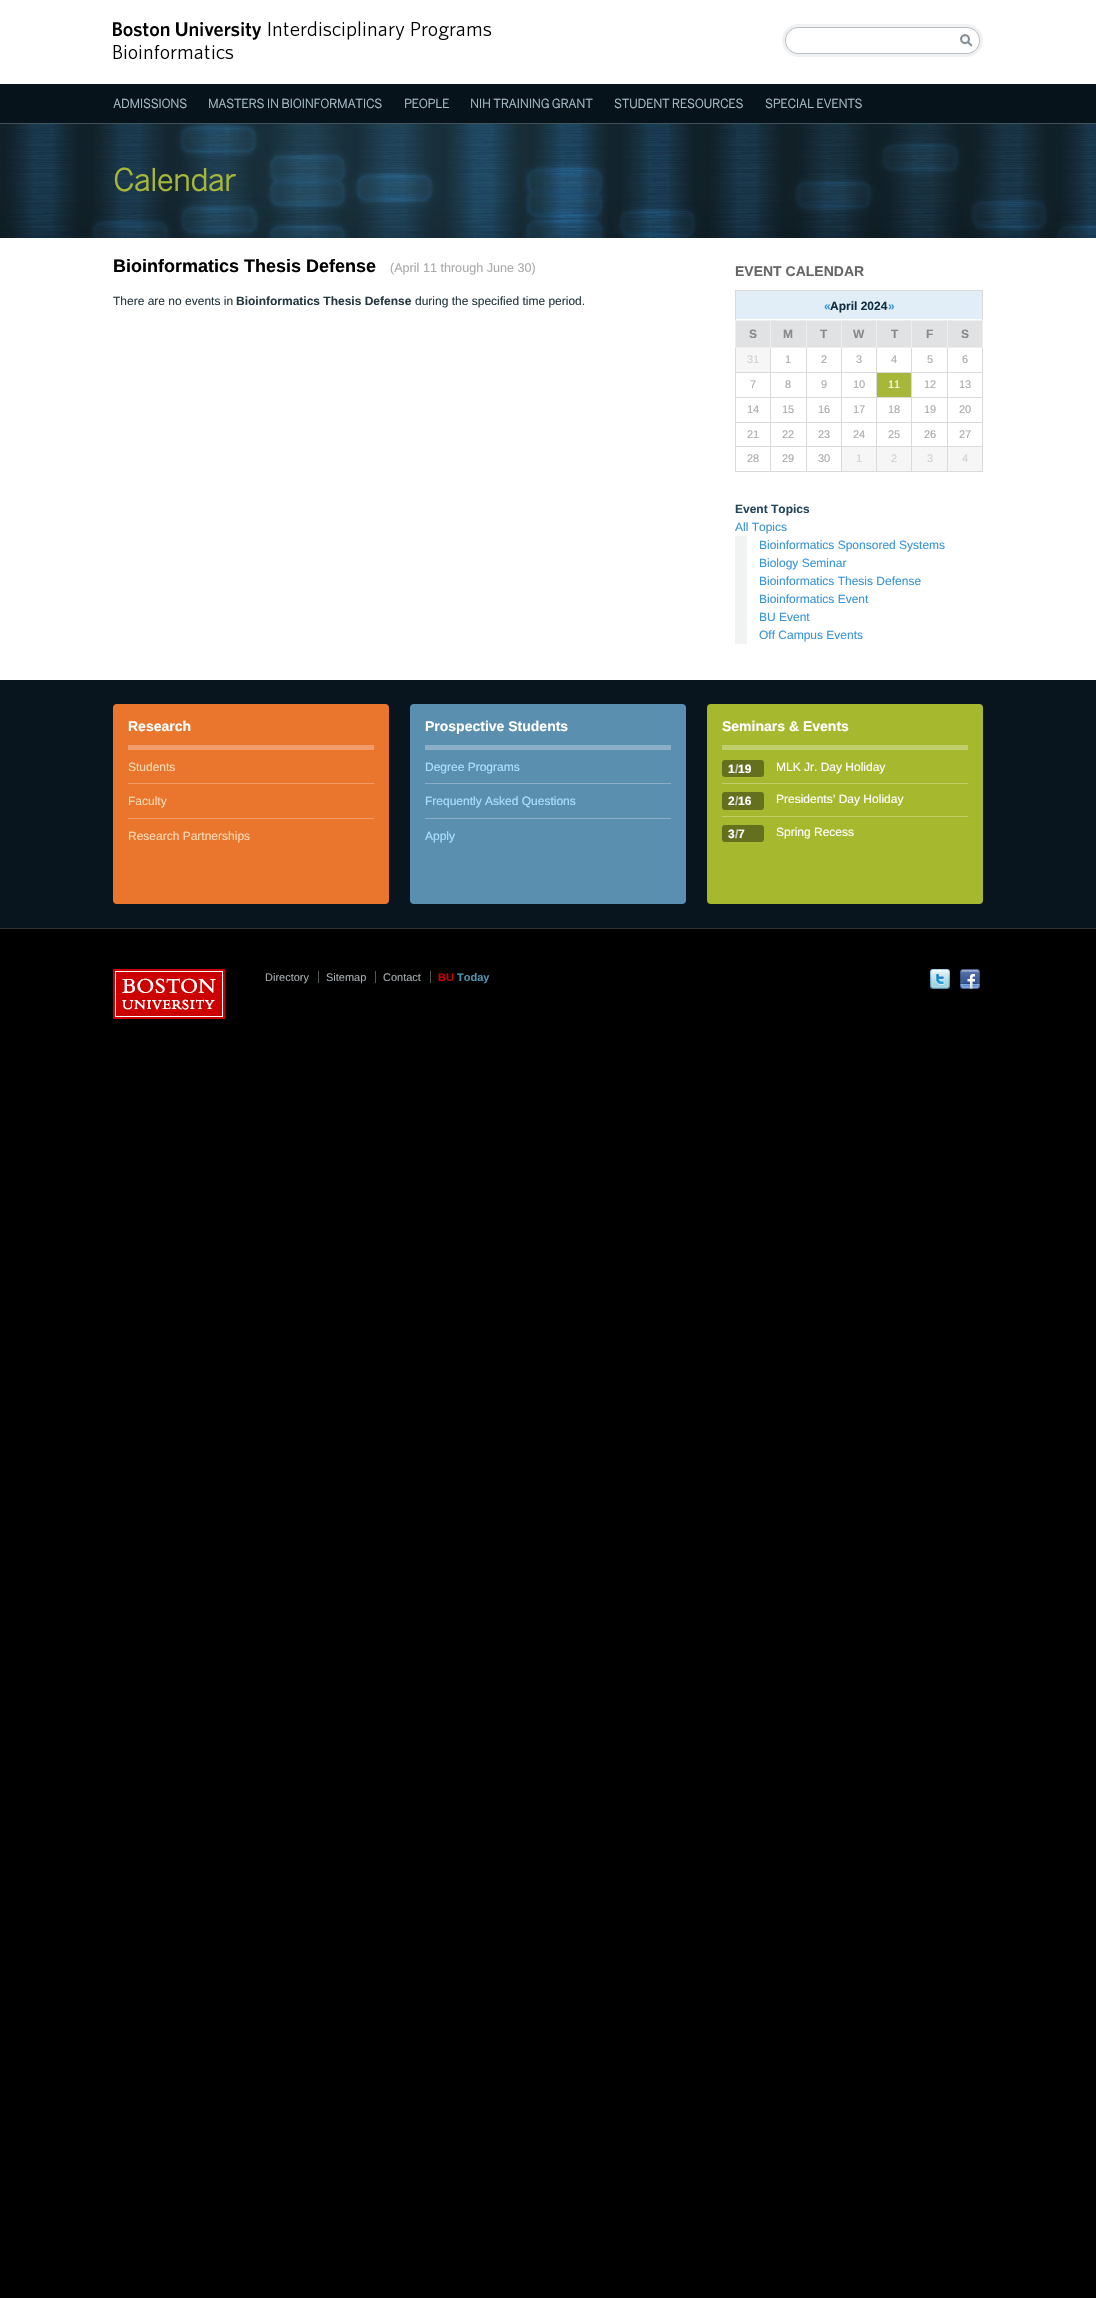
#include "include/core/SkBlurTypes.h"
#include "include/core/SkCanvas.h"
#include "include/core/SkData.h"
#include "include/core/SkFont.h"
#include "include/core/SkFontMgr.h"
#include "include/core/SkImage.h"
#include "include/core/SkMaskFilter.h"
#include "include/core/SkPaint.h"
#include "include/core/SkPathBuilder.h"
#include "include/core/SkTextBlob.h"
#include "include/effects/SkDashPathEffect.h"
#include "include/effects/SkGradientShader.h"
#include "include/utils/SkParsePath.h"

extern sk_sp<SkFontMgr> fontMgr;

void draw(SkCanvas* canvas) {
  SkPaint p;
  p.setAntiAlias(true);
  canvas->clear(SK_ColorBLACK);
  p.setColor(SK_ColorWHITE);
  canvas->drawRect(SkRect::MakeLTRB(0, 0, 1096, 680), p);
  canvas->drawImageRect(SkImages::DeferredFromEncodedData(SkData::MakeFromFileName("images/1.png")), SkRect::MakeLTRB(0, 84, 1096, 238), SkSamplingOptions());
  canvas->drawImageRect(SkImages::DeferredFromEncodedData(SkData::MakeFromFileName("images/2.png")), SkRect::MakeLTRB(113, 21, 492, 59), SkSamplingOptions());
  canvas->drawImageRect(SkImages::DeferredFromEncodedData(SkData::MakeFromFileName("images/3.png")), SkRect::MakeLTRB(782, 24, 983, 57), SkSamplingOptions());
  p.setColor(SkColorSetRGB(218, 218, 218));
  canvas->drawRect(SkRect::MakeLTRB(735, 290, 983, 291), p);
  canvas->drawRect(SkRect::MakeLTRB(982, 290, 983, 472), p);
  canvas->drawRect(SkRect::MakeLTRB(735, 471, 983, 472), p);
  canvas->drawRect(SkRect::MakeLTRB(735, 290, 736, 472), p);
  p.setColor(SkColorSetRGB(225, 238, 247));
  canvas->drawRect(SkRect::MakeLTRB(736, 291, 982, 319), p);
  p.setColor(SkColorSetRGB(224, 226, 228));
  canvas->drawRect(SkRect::MakeLTRB(736, 321, 770, 347), p);
  p.setColor(SkColorSetRGB(238, 238, 238));
  canvas->drawRect(SkRect::MakeLTRB(947, 320, 983, 321), p);
  canvas->drawRect(SkRect::MakeLTRB(982, 320, 983, 348), p);
  p.setColor(SkColorSetRGB(218, 218, 218));
  canvas->drawRect(SkRect::MakeLTRB(947, 372, 983, 373), p);
  canvas->drawRect(SkRect::MakeLTRB(947, 397, 983, 398), p);
  canvas->drawRect(SkRect::MakeLTRB(947, 422, 983, 423), p);
  canvas->drawRect(SkRect::MakeLTRB(947, 446, 983, 447), p);
  canvas->drawRect(SkRect::MakeLTRB(947, 446, 948, 472), p);
  canvas->drawRect(SkRect::MakeLTRB(911, 446, 948, 447), p);
  canvas->drawRect(SkRect::MakeLTRB(947, 422, 948, 447), p);
  canvas->drawRect(SkRect::MakeLTRB(911, 422, 948, 423), p);
  canvas->drawRect(SkRect::MakeLTRB(947, 397, 948, 423), p);
  canvas->drawRect(SkRect::MakeLTRB(911, 397, 948, 398), p);
  canvas->drawRect(SkRect::MakeLTRB(947, 372, 948, 398), p);
  canvas->drawRect(SkRect::MakeLTRB(911, 372, 948, 373), p);
  canvas->drawRect(SkRect::MakeLTRB(947, 347, 948, 373), p);
  p.setColor(SkColorSetRGB(238, 238, 238));
  canvas->drawRect(SkRect::MakeLTRB(947, 347, 983, 348), p);
  canvas->drawRect(SkRect::MakeLTRB(947, 320, 948, 348), p);
  canvas->drawRect(SkRect::MakeLTRB(911, 320, 948, 321), p);
  p.setColor(SkColorSetRGB(218, 218, 218));
  canvas->drawRect(SkRect::MakeLTRB(911, 446, 912, 472), p);
  canvas->drawRect(SkRect::MakeLTRB(876, 446, 912, 447), p);
  canvas->drawRect(SkRect::MakeLTRB(911, 422, 912, 447), p);
  canvas->drawRect(SkRect::MakeLTRB(876, 422, 912, 423), p);
  canvas->drawRect(SkRect::MakeLTRB(911, 397, 912, 423), p);
  canvas->drawRect(SkRect::MakeLTRB(876, 397, 912, 398), p);
  canvas->drawRect(SkRect::MakeLTRB(911, 372, 912, 398), p);
  canvas->drawRect(SkRect::MakeLTRB(876, 372, 912, 373), p);
  canvas->drawRect(SkRect::MakeLTRB(911, 347, 912, 373), p);
  p.setColor(SkColorSetRGB(238, 238, 238));
  canvas->drawRect(SkRect::MakeLTRB(911, 347, 948, 348), p);
  canvas->drawRect(SkRect::MakeLTRB(911, 320, 912, 348), p);
  canvas->drawRect(SkRect::MakeLTRB(876, 320, 912, 321), p);
  p.setColor(SkColorSetRGB(218, 218, 218));
  canvas->drawRect(SkRect::MakeLTRB(876, 446, 877, 472), p);
  canvas->drawRect(SkRect::MakeLTRB(841, 446, 877, 447), p);
  canvas->drawRect(SkRect::MakeLTRB(876, 422, 877, 447), p);
  canvas->drawRect(SkRect::MakeLTRB(841, 422, 877, 423), p);
  canvas->drawRect(SkRect::MakeLTRB(876, 397, 877, 423), p);
  canvas->drawRect(SkRect::MakeLTRB(841, 397, 877, 398), p);
  canvas->drawRect(SkRect::MakeLTRB(876, 372, 877, 398), p);
  canvas->drawRect(SkRect::MakeLTRB(841, 372, 877, 373), p);
  canvas->drawRect(SkRect::MakeLTRB(876, 347, 877, 373), p);
  p.setColor(SkColorSetRGB(238, 238, 238));
  canvas->drawRect(SkRect::MakeLTRB(876, 347, 912, 348), p);
  canvas->drawRect(SkRect::MakeLTRB(876, 320, 877, 348), p);
  canvas->drawRect(SkRect::MakeLTRB(841, 320, 877, 321), p);
  p.setColor(SkColorSetRGB(218, 218, 218));
  canvas->drawRect(SkRect::MakeLTRB(841, 446, 842, 472), p);
  canvas->drawRect(SkRect::MakeLTRB(806, 446, 842, 447), p);
  canvas->drawRect(SkRect::MakeLTRB(841, 422, 842, 447), p);
  canvas->drawRect(SkRect::MakeLTRB(806, 422, 842, 423), p);
  canvas->drawRect(SkRect::MakeLTRB(841, 397, 842, 423), p);
  canvas->drawRect(SkRect::MakeLTRB(806, 397, 842, 398), p);
  canvas->drawRect(SkRect::MakeLTRB(841, 372, 842, 398), p);
  canvas->drawRect(SkRect::MakeLTRB(806, 372, 842, 373), p);
  canvas->drawRect(SkRect::MakeLTRB(841, 347, 842, 373), p);
  p.setColor(SkColorSetRGB(238, 238, 238));
  canvas->drawRect(SkRect::MakeLTRB(841, 347, 877, 348), p);
  canvas->drawRect(SkRect::MakeLTRB(841, 320, 842, 348), p);
  canvas->drawRect(SkRect::MakeLTRB(806, 320, 842, 321), p);
  p.setColor(SkColorSetRGB(218, 218, 218));
  canvas->drawRect(SkRect::MakeLTRB(806, 446, 807, 472), p);
  canvas->drawRect(SkRect::MakeLTRB(770, 446, 807, 447), p);
  canvas->drawRect(SkRect::MakeLTRB(806, 422, 807, 447), p);
  canvas->drawRect(SkRect::MakeLTRB(770, 422, 807, 423), p);
  canvas->drawRect(SkRect::MakeLTRB(806, 397, 807, 423), p);
  canvas->drawRect(SkRect::MakeLTRB(770, 397, 807, 398), p);
  canvas->drawRect(SkRect::MakeLTRB(806, 372, 807, 398), p);
  canvas->drawRect(SkRect::MakeLTRB(770, 372, 807, 373), p);
  canvas->drawRect(SkRect::MakeLTRB(806, 347, 807, 373), p);
  p.setColor(SkColorSetRGB(238, 238, 238));
  canvas->drawRect(SkRect::MakeLTRB(806, 347, 842, 348), p);
  canvas->drawRect(SkRect::MakeLTRB(806, 320, 807, 348), p);
  canvas->drawRect(SkRect::MakeLTRB(770, 320, 807, 321), p);
  p.setColor(SkColorSetRGB(218, 218, 218));
  canvas->drawRect(SkRect::MakeLTRB(770, 446, 771, 472), p);
  canvas->drawRect(SkRect::MakeLTRB(735, 446, 771, 447), p);
  canvas->drawRect(SkRect::MakeLTRB(770, 422, 771, 447), p);
  canvas->drawRect(SkRect::MakeLTRB(735, 422, 771, 423), p);
  canvas->drawRect(SkRect::MakeLTRB(770, 397, 771, 423), p);
  canvas->drawRect(SkRect::MakeLTRB(735, 397, 771, 398), p);
  canvas->drawRect(SkRect::MakeLTRB(770, 372, 771, 398), p);
  canvas->drawRect(SkRect::MakeLTRB(735, 372, 771, 373), p);
  canvas->drawRect(SkRect::MakeLTRB(770, 347, 771, 373), p);
  p.setColor(SkColorSetRGB(238, 238, 238));
  canvas->drawRect(SkRect::MakeLTRB(770, 347, 807, 348), p);
  canvas->drawRect(SkRect::MakeLTRB(770, 320, 771, 348), p);
  canvas->drawRect(SkRect::MakeLTRB(735, 320, 771, 321), p);
  canvas->drawRect(SkRect::MakeLTRB(735, 347, 771, 348), p);
  canvas->drawRect(SkRect::MakeLTRB(735, 320, 736, 348), p);
  p.setColor(SkColorSetRGB(224, 226, 228));
  canvas->drawRect(SkRect::MakeLTRB(771, 321, 806, 347), p);
  canvas->drawRect(SkRect::MakeLTRB(807, 321, 841, 347), p);
  canvas->drawRect(SkRect::MakeLTRB(842, 321, 876, 347), p);
  canvas->drawRect(SkRect::MakeLTRB(877, 321, 911, 347), p);
  canvas->drawRect(SkRect::MakeLTRB(912, 321, 947, 347), p);
  canvas->drawRect(SkRect::MakeLTRB(948, 321, 982, 347), p);
  p.setColor(SkColorSetRGB(246, 246, 247));
  canvas->drawRect(SkRect::MakeLTRB(736, 348, 770, 372), p);
  p.setColor(SkColorSetRGB(167, 183, 57));
  canvas->drawRect(SkRect::MakeLTRB(877, 373, 911, 397), p);
  p.setColor(SkColorSetRGB(246, 246, 247));
  canvas->drawRect(SkRect::MakeLTRB(842, 447, 876, 471), p);
  canvas->drawRect(SkRect::MakeLTRB(877, 447, 911, 471), p);
  canvas->drawRect(SkRect::MakeLTRB(912, 447, 947, 471), p);
  canvas->drawRect(SkRect::MakeLTRB(948, 447, 982, 471), p);
  p.setColor(SkColorSetRGB(241, 242, 242));
  canvas->drawRect(SkRect::MakeLTRB(735, 536, 747, 644), p);
  p.setColor(SkColorSetRGB(8, 21, 31));
  canvas->drawRect(SkRect::MakeLTRB(0, 680, 1096, 928), p);
  p.setColor(SkColorSetRGB(51, 51, 51));
  canvas->drawRect(SkRect::MakeLTRB(0, 928, 1096, 929), p);
  p.setColor(SkColorSetRGB(233, 118, 44));
  canvas->drawRoundRect(SkRect::MakeLTRB(113, 704, 389, 904), 4, 4, p);
  p.setColor(SkColorSetRGB(240, 157, 107));
  canvas->drawRect(SkRect::MakeLTRB(128, 745, 374, 750), p);
  p.setColor(SkColorSetRGB(237, 156, 112));
  canvas->drawRect(SkRect::MakeLTRB(128, 783, 374, 784), p);
  canvas->drawRect(SkRect::MakeLTRB(128, 818, 374, 819), p);
  p.setColor(SkColorSetRGB(91, 143, 176));
  canvas->drawRoundRect(SkRect::MakeLTRB(410, 704, 686, 904), 4, 4, p);
  p.setColor(SkColorSetRGB(140, 175, 199));
  canvas->drawRect(SkRect::MakeLTRB(425, 745, 671, 750), p);
  canvas->drawRect(SkRect::MakeLTRB(425, 783, 671, 784), p);
  canvas->drawRect(SkRect::MakeLTRB(425, 818, 671, 819), p);
  p.setColor(SkColorSetRGB(166, 185, 46));
  canvas->drawRoundRect(SkRect::MakeLTRB(707, 704, 983, 904), 4, 4, p);
  p.setColor(SkColorSetRGB(192, 206, 110));
  canvas->drawRect(SkRect::MakeLTRB(722, 745, 968, 750), p);
  p.setColor(SkColorSetRGB(100, 112, 29));
  canvas->drawRoundRect(SkRect::MakeLTRB(722, 760, 764, 777), 3, 3, p);
  p.setColor(SkColorSetRGB(192, 206, 110));
  canvas->drawRect(SkRect::MakeLTRB(722, 783, 968, 784), p);
  p.setColor(SkColorSetRGB(100, 112, 29));
  canvas->drawRoundRect(SkRect::MakeLTRB(722, 792, 764, 810), 3, 3, p);
  p.setColor(SkColorSetRGB(192, 206, 110));
  canvas->drawRect(SkRect::MakeLTRB(722, 816, 968, 817), p);
  p.setColor(SkColorSetRGB(100, 112, 29));
  canvas->drawRoundRect(SkRect::MakeLTRB(722, 825, 764, 842), 3, 3, p);
  canvas->drawImageRect(SkImages::DeferredFromEncodedData(SkData::MakeFromFileName("images/4.png")), SkRect::MakeLTRB(113, 969, 225, 1019), SkSamplingOptions());
  p.setColor(SkColorSetRGB(83, 87, 88));
  canvas->drawRect(SkRect::MakeLTRB(318, 971, 319, 983), p);
  canvas->drawRect(SkRect::MakeLTRB(375, 971, 376, 983), p);
  canvas->drawRect(SkRect::MakeLTRB(430, 971, 431, 983), p);
  canvas->drawImageRect(SkImages::DeferredFromEncodedData(SkData::MakeFromFileName("images/5.png")), SkRect::MakeLTRB(930, 969, 950, 989), SkSamplingOptions());
  canvas->drawImageRect(SkImages::DeferredFromEncodedData(SkData::MakeFromFileName("images/6.png")), SkRect::MakeLTRB(960, 969, 980, 989), SkSamplingOptions());
  SkFont font1(fontMgr->matchFamilyStyle("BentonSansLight", SkFontStyle::Bold()), 12);
  font1.setSubpixel(true);
  p.setColor(SkColorSetRGB(170, 192, 202));
  canvas->drawString("ADMISSIONS", 113, 108, font1, p);
  canvas->drawString("MASTERS IN BIOINFORMATICS", 208, 108, font1, p);
  canvas->drawString("PEOPLE", 404, 108, font1, p);
  canvas->drawString("NIH TRAINING GRANT", 470, 108, font1, p);
  canvas->drawString("STUDENT RESOURCES", 614, 108, font1, p);
  canvas->drawString("SPECIAL EVENTS", 765, 108, font1, p);
  SkFont font2(fontMgr->matchFamilyStyle("BentonSansLight", SkFontStyle::Bold()), 30);
  font2.setSubpixel(true);
  p.setColor(SkColorSetRGB(167, 183, 57));
  canvas->drawString("Calendar", 113, 191, font2, p);
  SkFont font3(fontMgr->matchFamilyStyle("Liberation Sans", SkFontStyle::Bold()), 18);
  font3.setSubpixel(true);
  p.setColor(SK_ColorBLACK);
  canvas->drawString("Bioinformatics Thesis Defense", 113, 272, font3, p);
  SkFont font4(fontMgr->matchFamilyStyle("Liberation Sans", SkFontStyle::Normal()), 12.6f);
  font4.setSubpixel(true);
  p.setColor(SkColorSetRGB(170, 170, 170));
  canvas->drawString("(April 11 through June 30)", 390, 272, font4, p);
  SkFont font5(fontMgr->matchFamilyStyle("Liberation Sans", SkFontStyle::Normal()), 12);
  font5.setSubpixel(true);
  p.setColor(SkColorSetRGB(39, 57, 65));
  canvas->drawString("There are no events in", 113, 305, font5, p);
  SkFont font6(fontMgr->matchFamilyStyle("Liberation Sans", SkFontStyle::Bold()), 12);
  font6.setSubpixel(true);
  canvas->drawString("Bioinformatics Thesis Defense", 236, 305, font6, p);
  canvas->drawString("during the specified time period.", 415, 305, font5, p);
  SkFont font7(fontMgr->matchFamilyStyle("Liberation Sans", SkFontStyle::Bold()), 14);
  font7.setSubpixel(true);
  p.setColor(SkColorSetRGB(102, 102, 102));
  canvas->drawString("EVENT CALENDAR", 735, 276, font7, p);
  p.setColor(SkColorSetRGB(56, 148, 216));
  canvas->drawString("«", 824, 310, font6, p);
  p.setColor(SkColorSetRGB(17, 47, 66));
  canvas->drawString("April 2024", 830, 310, font6, p);
  p.setColor(SkColorSetRGB(56, 148, 216));
  canvas->drawString("»", 888, 310, font6, p);
  p.setColor(SkColorSetRGB(136, 136, 136));
  canvas->drawString("S", 749, 338, font6, p);
  canvas->drawString("M", 783, 338, font6, p);
  canvas->drawString("T", 820, 338, font6, p);
  canvas->drawString("W", 853, 338, font6, p);
  canvas->drawString("T", 891, 338, font6, p);
  canvas->drawString("F", 926, 338, font6, p);
  canvas->drawString("S", 961, 338, font6, p);
  SkFont font8(fontMgr->matchFamilyStyle("Liberation Sans", SkFontStyle::Normal()), 11);
  font8.setSubpixel(true);
  p.setColor(SkColorSetRGB(206, 209, 210));
  canvas->drawString("31", 747, 363, font8, p);
  p.setColor(SkColorSetRGB(170, 170, 170));
  canvas->drawString("1", 785, 363, font8, p);
  canvas->drawString("2", 821, 363, font8, p);
  canvas->drawString("3", 856, 363, font8, p);
  canvas->drawString("4", 891, 363, font8, p);
  canvas->drawString("5", 927, 363, font8, p);
  canvas->drawString("6", 962, 363, font8, p);
  canvas->drawString("7", 750, 388, font8, p);
  canvas->drawString("8", 785, 388, font8, p);
  canvas->drawString("9", 821, 388, font8, p);
  canvas->drawString("10", 853, 388, font8, p);
  p.setColor(SK_ColorWHITE);
  canvas->drawString("11", 888, 388, font8, p);
  p.setColor(SkColorSetRGB(170, 170, 170));
  canvas->drawString("12", 924, 388, font8, p);
  canvas->drawString("13", 959, 388, font8, p);
  canvas->drawString("14", 747, 413, font8, p);
  canvas->drawString("15", 782, 413, font8, p);
  canvas->drawString("16", 818, 413, font8, p);
  canvas->drawString("17", 853, 413, font8, p);
  canvas->drawString("18", 888, 413, font8, p);
  canvas->drawString("19", 924, 413, font8, p);
  canvas->drawString("20", 959, 413, font8, p);
  canvas->drawString("21", 747, 438, font8, p);
  canvas->drawString("22", 782, 438, font8, p);
  canvas->drawString("23", 818, 438, font8, p);
  canvas->drawString("24", 853, 438, font8, p);
  canvas->drawString("25", 888, 438, font8, p);
  canvas->drawString("26", 924, 438, font8, p);
  canvas->drawString("27", 959, 438, font8, p);
  canvas->drawString("28", 747, 462, font8, p);
  canvas->drawString("29", 782, 462, font8, p);
  canvas->drawString("30", 818, 462, font8, p);
  p.setColor(SkColorSetRGB(206, 209, 210));
  canvas->drawString("1", 856, 462, font8, p);
  canvas->drawString("2", 891, 462, font8, p);
  canvas->drawString("3", 927, 462, font8, p);
  canvas->drawString("4", 962, 462, font8, p);
  p.setColor(SkColorSetRGB(35, 70, 91));
  canvas->drawString("Event Topics", 735, 513, font6, p);
  p.setColor(SkColorSetRGB(56, 148, 216));
  canvas->drawString("All Topics", 735, 531, font5, p);
  canvas->drawString("Bioinformatics Sponsored Systems", 759, 549, font5, p);
  canvas->drawString("Biology Seminar", 759, 567, font5, p);
  canvas->drawString("Bioinformatics Thesis Defense", 759, 585, font5, p);
  canvas->drawString("Bioinformatics Event", 759, 603, font5, p);
  canvas->drawString("BU Event", 759, 621, font5, p);
  canvas->drawString("Off Campus Events", 759, 639, font5, p);
  p.setColor(SK_ColorWHITE);
  canvas->drawString("Research", 128, 731, font7, p);
  p.setColor(SkColorSetRGB(254, 218, 182));
  canvas->drawString("Students", 128, 771, font5, p);
  canvas->drawString("Faculty", 128, 805, font5, p);
  canvas->drawString("Research Partnerships", 128, 840, font5, p);
  p.setColor(SK_ColorWHITE);
  canvas->drawString("Prospective Students", 425, 731, font7, p);
  p.setColor(SkColorSetRGB(172, 224, 255));
  canvas->drawString("Degree Programs", 425, 771, font5, p);
  canvas->drawString("Frequently Asked Questions", 425, 805, font5, p);
  canvas->drawString("Apply", 425, 840, font5, p);
  p.setColor(SK_ColorWHITE);
  canvas->drawString("Seminars & Events", 722, 731, font7, p);
  canvas->drawString("1 19", 728, 773, font6, p);
  p.setColor(SkColorSetRGB(204, 204, 204));
  canvas->drawString("/", 735, 773, font6, p);
  p.setColor(SK_ColorWHITE);
  canvas->drawString("MLK Jr. Day Holiday", 776, 771, font5, p);
  canvas->drawString("2 16", 728, 805, font6, p);
  p.setColor(SkColorSetRGB(204, 204, 204));
  canvas->drawString("/", 735, 805, font6, p);
  p.setColor(SK_ColorWHITE);
  canvas->drawString("Presidents’ Day Holiday", 776, 803, font5, p);
  canvas->drawString("3 7", 728, 838, font6, p);
  p.setColor(SkColorSetRGB(204, 204, 204));
  canvas->drawString("/", 735, 838, font6, p);
  p.setColor(SK_ColorWHITE);
  canvas->drawString("Spring Recess", 776, 836, font5, p);
  p.setColor(SkColorSetRGB(164, 171, 174));
  canvas->drawString("Directory", 265, 981, font8, p);
  canvas->drawString("Sitemap", 326, 981, font8, p);
  canvas->drawString("Contact", 383, 981, font8, p);
  SkFont font9(fontMgr->matchFamilyStyle("Liberation Sans", SkFontStyle::Bold()), 11);
  font9.setSubpixel(true);
  p.setColor(SkColorSetRGB(204, 0, 0));
  canvas->drawString("BU", 438, 981, font9, p);
  p.setColor(SkColorSetRGB(81, 147, 177));
  canvas->drawString("Today", 457, 981, font9, p);
}
